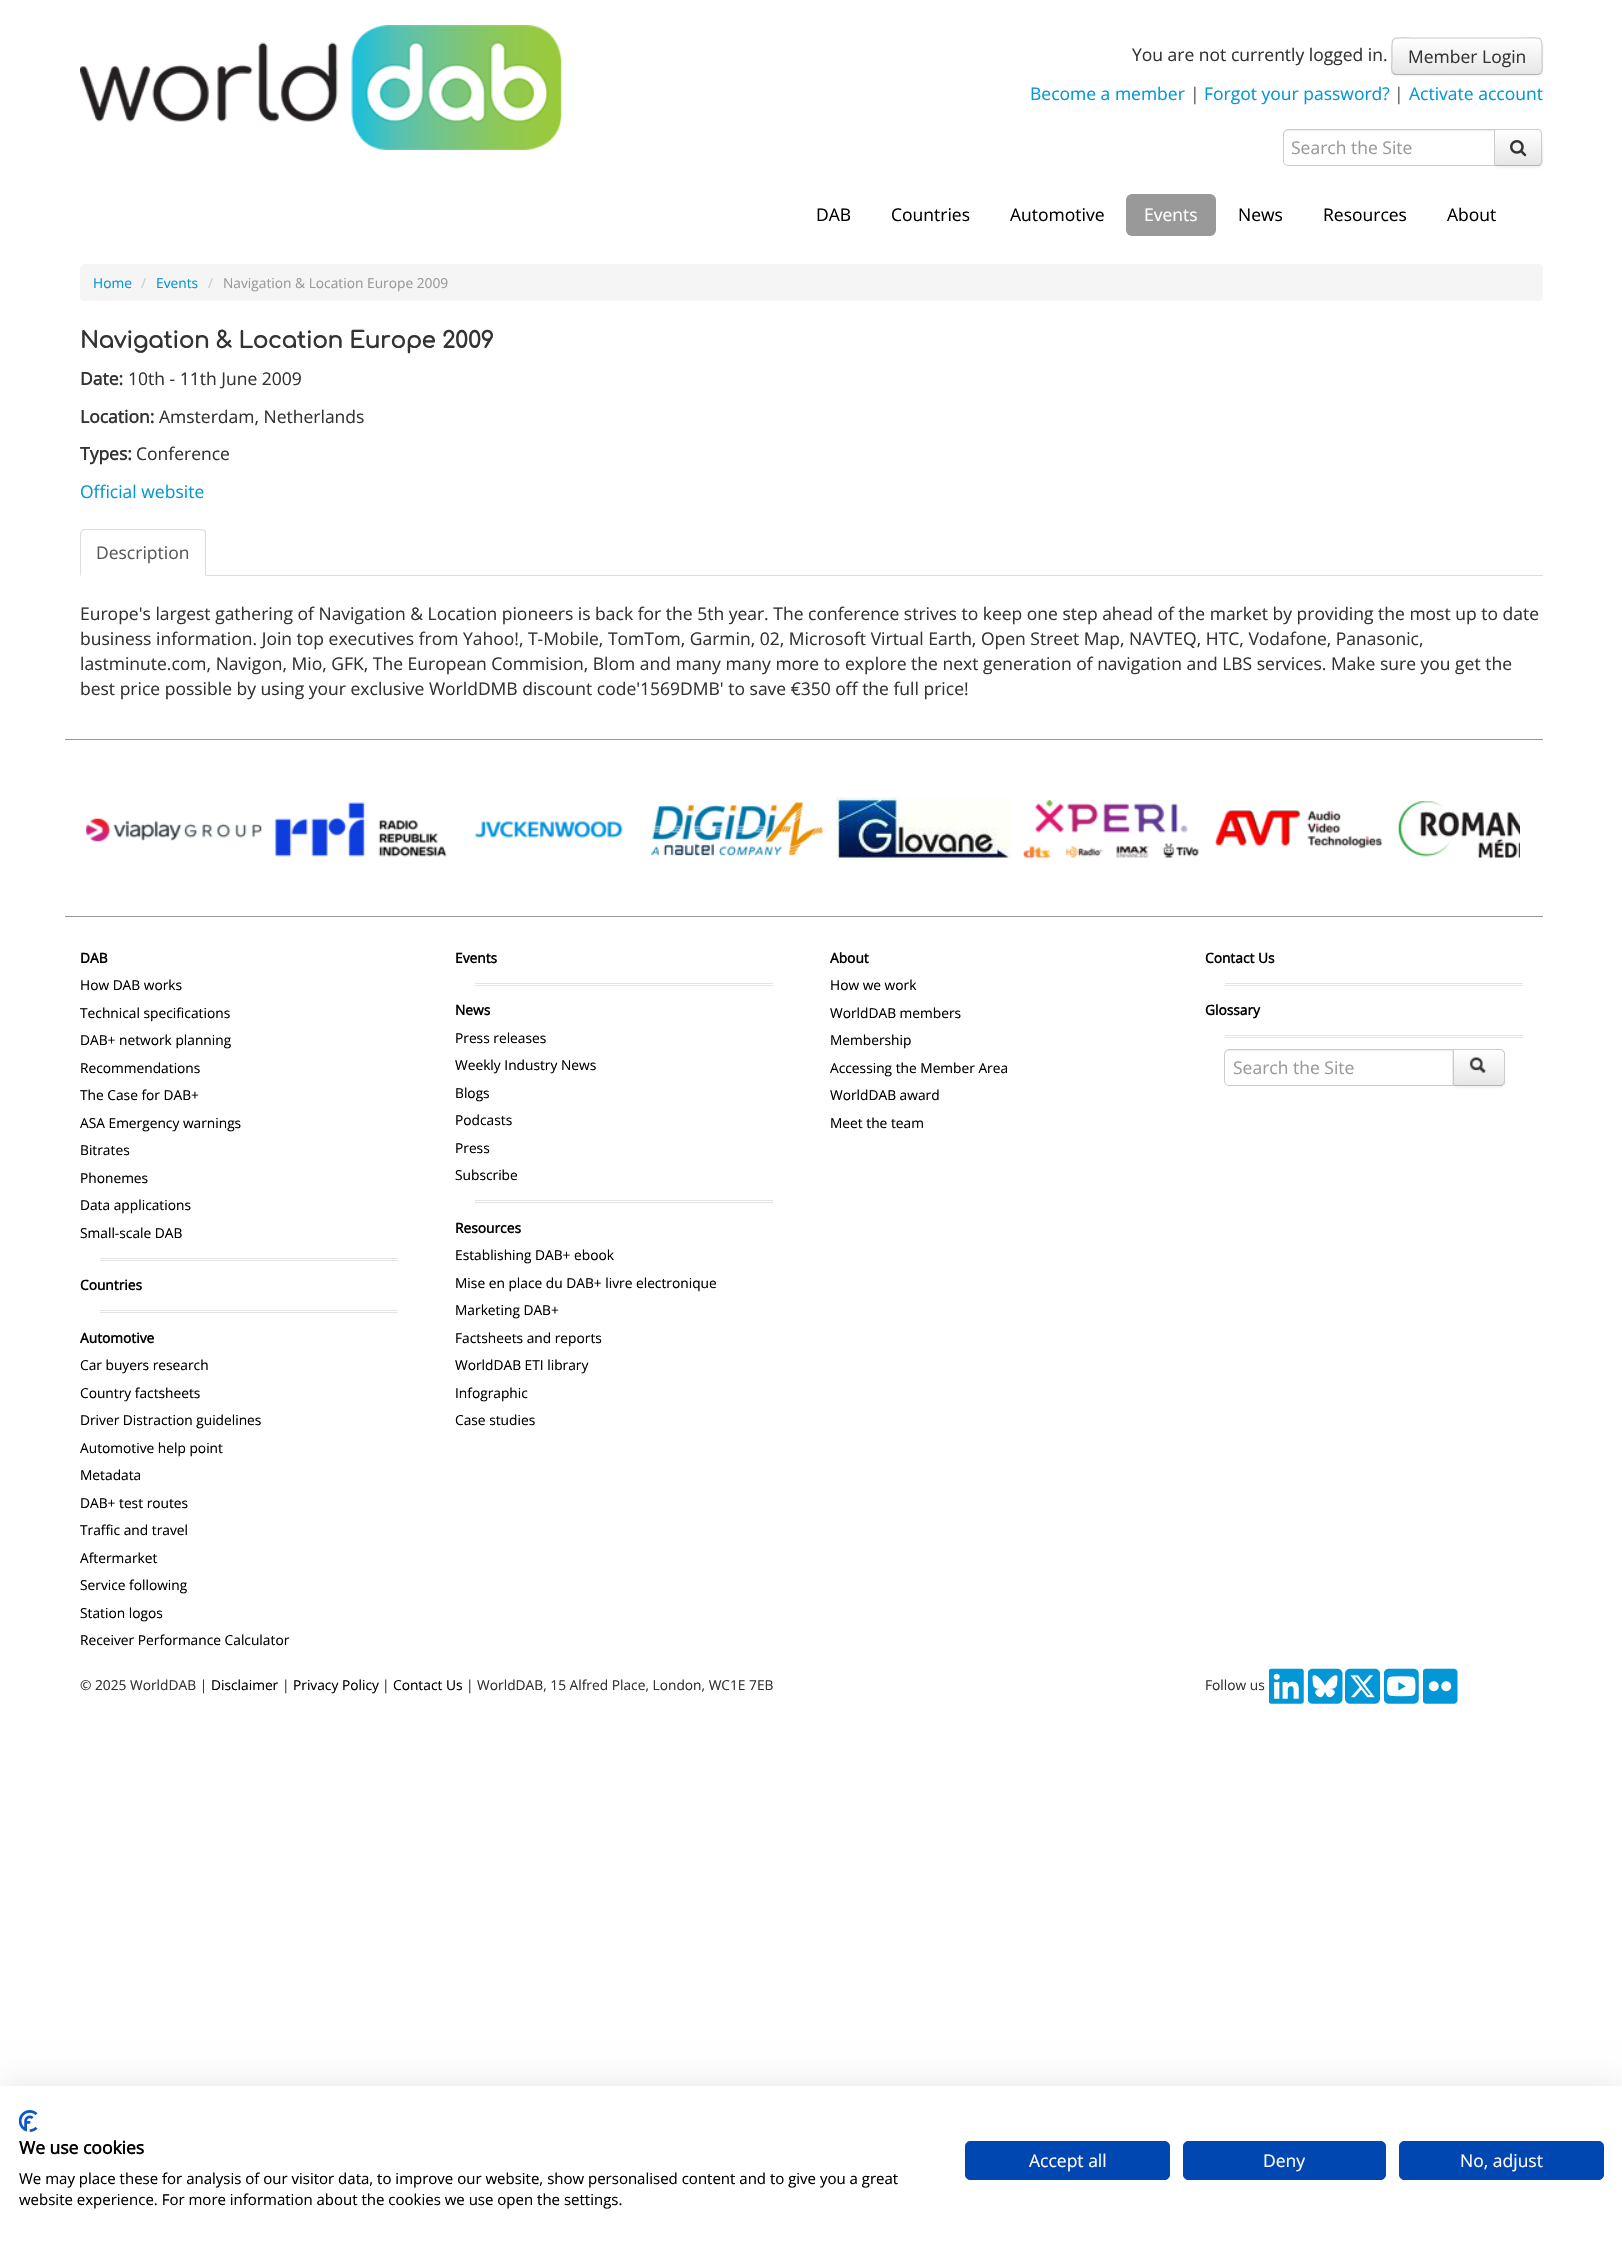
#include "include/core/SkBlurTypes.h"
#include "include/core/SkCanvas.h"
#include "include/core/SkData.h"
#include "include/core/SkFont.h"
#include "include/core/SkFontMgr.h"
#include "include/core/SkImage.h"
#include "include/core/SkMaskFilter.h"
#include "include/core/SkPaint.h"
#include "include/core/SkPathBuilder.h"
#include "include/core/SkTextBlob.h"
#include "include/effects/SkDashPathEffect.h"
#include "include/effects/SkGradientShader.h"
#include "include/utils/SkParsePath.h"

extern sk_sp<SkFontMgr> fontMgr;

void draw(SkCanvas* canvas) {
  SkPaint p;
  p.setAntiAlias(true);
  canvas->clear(SK_ColorWHITE);
  canvas->drawImageRect(SkImages::DeferredFromEncodedData(SkData::MakeFromFileName("images/1.png")), SkRect::MakeLTRB(80, 25, 562, 150), SkSamplingOptions());
  p.setColor(SkColorSetARGB(13, 0, 0, 0));
  p.setMaskFilter(SkMaskFilter::MakeBlur(kNormal_SkBlurStyle, 1));
  canvas->drawRoundRect(SkRect::MakeLTRB(1391, 39, 1543, 76), 5, 5, p);
  p.setMaskFilter(nullptr);
  p.setColor(SkColorSetRGB(245, 245, 245));
  canvas->drawRoundRect(SkRect::MakeLTRB(1391, 38, 1543, 75), 5, 5, p);
  canvas->save();
  canvas->clipPath(SkPathBuilder().moveTo(1396, 38).lineTo(1538, 38).cubicTo(1541, 38, 1543, 40, 1543, 43).lineTo(1543, 70).cubicTo(1543, 73, 1541, 75, 1538, 75).lineTo(1396, 75).cubicTo(1393, 75, 1391, 73, 1391, 70).lineTo(1391, 43).cubicTo(1391, 40, 1393, 38, 1396, 38).close().detach(), true);
  {
    const SkColor colors[] = {SK_ColorWHITE, SkColorSetRGB(230, 230, 230)};
    const float stops[] = {0, 1};
    const SkPoint ends[] = {{1467, 39}, {1467, 74}};
    p.setShader(SkGradientShader::MakeLinear(ends, colors, stops, 2, SkTileMode::kClamp));
    p.setAlpha(255);
  }
  canvas->drawRect(SkRect::MakeLTRB(1391, 39, 1543, 74), p);
  canvas->restore();
  p.setStyle(SkPaint::kStroke_Style);
  p.setStrokeWidth(1.2f);
  p.setShader(nullptr);
  p.setColor(SkColorSetRGB(179, 179, 179));
  canvas->drawPath(SkPathBuilder().moveTo(1540.5f, 73).cubicTo(1540, 74, 1538.5f, 74.5f, 1537.5f, 74.5f).lineTo(1396, 74.5f).cubicTo(1395, 74.5f, 1394, 74, 1393, 73).detach(), p);
  p.setColor(SkColorSetRGB(204, 204, 204));
  canvas->drawPath(SkPathBuilder().moveTo(1393, 73).cubicTo(1390.5f, 70.5f, 1392, 64, 1392, 61).cubicTo(1392, 32.5f, 1388, 38, 1420, 38).lineTo(1514, 38).cubicTo(1546, 38, 1542, 32.5f, 1542, 61).cubicTo(1542, 64, 1543.5f, 70.5f, 1540.5f, 73).detach(), p);
  p.setStyle(SkPaint::kFill_Style);
  p.setColor(SkColorSetARGB(13, 0, 0, 0));
  p.setMaskFilter(SkMaskFilter::MakeBlur(kNormal_SkBlurStyle, 1));
  canvas->drawRoundRect(SkRect::MakeLTRB(1494, 130, 1543, 168), 5, 5, p);
  p.setMaskFilter(nullptr);
  p.setColor(SkColorSetRGB(245, 245, 245));
  canvas->drawPath(SkPathBuilder().moveTo(1494, 129).lineTo(1538, 129).cubicTo(1541, 129, 1543, 131, 1543, 134).lineTo(1543, 161).cubicTo(1543, 164, 1541, 166, 1538, 166).lineTo(1494, 166).close().detach(), p);
  canvas->save();
  canvas->clipPath(SkPathBuilder().moveTo(1494, 129).lineTo(1538, 129).cubicTo(1541, 129, 1543, 131, 1543, 134).lineTo(1543, 161).cubicTo(1543, 164, 1541, 166, 1538, 166).lineTo(1494, 166).close().detach(), true);
  {
    const SkColor colors[] = {SK_ColorWHITE, SkColorSetRGB(230, 230, 230)};
    const float stops[] = {0, 1};
    const SkPoint ends[] = {{1518, 130}, {1518, 165}};
    p.setShader(SkGradientShader::MakeLinear(ends, colors, stops, 2, SkTileMode::kClamp));
    p.setAlpha(255);
  }
  canvas->drawRect(SkRect::MakeLTRB(1495, 130, 1543, 165), p);
  canvas->restore();
  p.setShader(nullptr);
  p.setColor(SkColorSetRGB(204, 204, 204));
  canvas->drawPath(SkPathBuilder().moveTo(1494, 129).lineTo(1495, 130).lineTo(1539, 130).lineTo(1540, 131).lineTo(1541, 130).cubicTo(1540, 130, 1539, 129, 1538, 129).close().detach(), p);
  canvas->drawPath(SkPathBuilder().moveTo(1541, 130.5f).cubicTo(1541.5f, 131.5f, 1542, 132.5f, 1542, 134).lineTo(1542, 161).cubicTo(1542, 162.5f, 1541.5f, 163.5f, 1541, 164.5f).lineTo(1540, 164).cubicTo(1540.5f, 163, 1541, 162, 1541, 161).lineTo(1541, 134).cubicTo(1541, 133, 1540.5f, 132, 1540, 131).close().detach(), p);
  p.setColor(SkColorSetRGB(179, 179, 179));
  canvas->drawPath(SkPathBuilder().moveTo(1541, 165).lineTo(1539, 166).lineTo(1494, 166).lineTo(1495, 165).lineTo(1539, 165).lineTo(1540, 164).close().detach(), p);
  p.setColor(SK_ColorWHITE);
  canvas->drawPath(SkPathBuilder().moveTo(1288, 129).lineTo(1495, 129).lineTo(1495, 166).lineTo(1288, 166).cubicTo(1285, 166, 1283, 164, 1283, 161).lineTo(1283, 134).cubicTo(1283, 131, 1285, 129, 1288, 129).close().detach(), p);
  p.setColor(SkColorSetRGB(236, 236, 236));
  canvas->drawPath(SkPathBuilder().moveTo(1288, 131).lineTo(1494, 131).lineTo(1494, 130).lineTo(1286, 130).cubicTo(1284, 131, 1284, 133, 1284, 135).cubicTo(1284, 133, 1285, 131, 1288, 131).close().detach(), p);
  p.setStyle(SkPaint::kStroke_Style);
  p.setStrokeWidth(1);
  p.setColor(SkColorSetRGB(204, 204, 204));
  canvas->drawPath(SkPathBuilder().moveTo(1288, 129.5f).lineTo(1494.5f, 129.5f).lineTo(1494.5f, 165.5f).lineTo(1288, 165.5f).cubicTo(1285.5f, 165.5f, 1283.5f, 163.5f, 1283.5f, 161).lineTo(1283.5f, 134).cubicTo(1283.5f, 131.5f, 1285.5f, 129.5f, 1288, 129.5f).close().detach(), p);
  canvas->drawImageRect(SkImages::DeferredFromEncodedData(SkData::MakeFromFileName("images/2.png")), SkRect::MakeLTRB(1510, 140, 1527, 157), SkSamplingOptions());
  p.setStyle(SkPaint::kFill_Style);
  p.setColor(SkColorSetRGB(153, 153, 153));
  canvas->drawRoundRect(SkRect::MakeLTRB(1126, 194, 1216, 236), 6, 6, p);
  p.setColor(SkColorSetRGB(245, 245, 245));
  canvas->drawRoundRect(SkRect::MakeLTRB(80, 264, 1543, 301), 5, 5, p);
  p.setColor(SkColorSetRGB(221, 221, 221));
  canvas->drawRect(SkRect::MakeLTRB(206, 575, 1543, 576), p);
  canvas->drawPath(SkPathBuilder().moveTo(85, 529).cubicTo(84, 529, 82, 529, 82, 530).lineTo(82, 531).lineTo(85, 530).lineTo(201, 530).lineTo(204, 531).lineTo(205, 530).cubicTo(204, 530, 202, 529, 201, 529).close().detach(), p);
  canvas->drawPath(SkPathBuilder().moveTo(206, 576).lineTo(206, 534).cubicTo(206, 532, 206, 531, 205, 530).lineTo(204, 531).cubicTo(204, 532, 205, 533, 205, 534).lineTo(205, 575).close().detach(), p);
  canvas->drawPath(SkPathBuilder().moveTo(80, 534).lineTo(80, 576).lineTo(81, 575).lineTo(81, 534).cubicTo(81, 533, 82, 532, 82, 531).lineTo(82, 530).cubicTo(81, 531, 80, 532, 80, 534).close().detach(), p);
  p.setColor(SkColorSetRGB(152, 152, 152));
  canvas->drawRect(SkRect::MakeLTRB(65, 739, 1543, 740), p);
  canvas->drawImageRect(SkImages::DeferredFromEncodedData(SkData::MakeFromFileName("images/3.png")), SkRect::MakeLTRB(86, 818, 262, 842), SkSamplingOptions());
  canvas->drawImageRect(SkImages::DeferredFromEncodedData(SkData::MakeFromFileName("images/4.png")), SkRect::MakeLTRB(274, 802, 447, 857), SkSamplingOptions());
  canvas->drawImageRect(SkImages::DeferredFromEncodedData(SkData::MakeFromFileName("images/5.png")), SkRect::MakeLTRB(475, 821, 623, 838), SkSamplingOptions());
  canvas->drawImageRect(SkImages::DeferredFromEncodedData(SkData::MakeFromFileName("images/6.png")), SkRect::MakeLTRB(651, 802, 824, 857), SkSamplingOptions());
  canvas->drawImageRect(SkImages::DeferredFromEncodedData(SkData::MakeFromFileName("images/7.png")), SkRect::MakeLTRB(836, 797, 1012, 861), SkSamplingOptions());
  canvas->drawImageRect(SkImages::DeferredFromEncodedData(SkData::MakeFromFileName("images/8.png")), SkRect::MakeLTRB(1023, 800, 1199, 858), SkSamplingOptions());
  canvas->drawImageRect(SkImages::DeferredFromEncodedData(SkData::MakeFromFileName("images/9.png")), SkRect::MakeLTRB(1215, 810, 1383, 849), SkSamplingOptions());
  canvas->drawImageRect(SkImages::DeferredFromEncodedData(SkData::MakeFromFileName("images/10.png")), SkRect::MakeLTRB(1398, 801, 1520, 858), SkSamplingOptions());
  canvas->drawRect(SkRect::MakeLTRB(65, 916, 1543, 917), p);
  p.setColor(SkColorSetRGB(229, 229, 229));
  canvas->drawRect(SkRect::MakeLTRB(100, 1258, 398, 1261), p);
  p.setColor(SK_ColorWHITE);
  canvas->drawRect(SkRect::MakeLTRB(100, 1259, 398, 1260), p);
  p.setColor(SkColorSetRGB(229, 229, 229));
  canvas->drawRect(SkRect::MakeLTRB(100, 1310, 398, 1313), p);
  p.setColor(SK_ColorWHITE);
  canvas->drawRect(SkRect::MakeLTRB(100, 1311, 398, 1312), p);
  p.setColor(SkColorSetRGB(229, 229, 229));
  canvas->drawRect(SkRect::MakeLTRB(475, 983, 773, 986), p);
  p.setColor(SK_ColorWHITE);
  canvas->drawRect(SkRect::MakeLTRB(475, 984, 773, 985), p);
  p.setColor(SkColorSetRGB(229, 229, 229));
  canvas->drawRect(SkRect::MakeLTRB(475, 1200, 773, 1203), p);
  p.setColor(SK_ColorWHITE);
  canvas->drawRect(SkRect::MakeLTRB(475, 1201, 773, 1202), p);
  p.setColor(SkColorSetRGB(229, 229, 229));
  canvas->drawRect(SkRect::MakeLTRB(1225, 983, 1523, 986), p);
  p.setColor(SK_ColorWHITE);
  canvas->drawRect(SkRect::MakeLTRB(1225, 984, 1523, 985), p);
  p.setColor(SkColorSetRGB(229, 229, 229));
  canvas->drawRect(SkRect::MakeLTRB(1225, 1035, 1523, 1038), p);
  p.setColor(SK_ColorWHITE);
  canvas->drawRect(SkRect::MakeLTRB(1225, 1036, 1523, 1037), p);
  p.setColor(SkColorSetARGB(13, 0, 0, 0));
  p.setMaskFilter(SkMaskFilter::MakeBlur(kNormal_SkBlurStyle, 1));
  canvas->drawRoundRect(SkRect::MakeLTRB(1453, 1050, 1505, 1088), 5, 5, p);
  p.setMaskFilter(nullptr);
  canvas->save();
  canvas->clipPath(SkPathBuilder().moveTo(1453, 1049).lineTo(1500, 1049).cubicTo(1503, 1049, 1505, 1051, 1505, 1054).lineTo(1505, 1081).cubicTo(1505, 1084, 1503, 1086, 1500, 1086).lineTo(1453, 1086).close().detach(), true);
  {
    const SkColor colors[] = {SK_ColorWHITE, SkColorSetRGB(230, 230, 230)};
    const float stops[] = {0, 1};
    const SkPoint ends[] = {{1479, 1050}, {1479, 1085}};
    p.setShader(SkGradientShader::MakeLinear(ends, colors, stops, 2, SkTileMode::kClamp));
    p.setAlpha(255);
  }
  canvas->drawRect(SkRect::MakeLTRB(1454, 1050, 1505, 1085), p);
  canvas->restore();
  p.setShader(nullptr);
  p.setColor(SkColorSetRGB(204, 204, 204));
  canvas->drawPath(SkPathBuilder().moveTo(1454, 1050).lineTo(1500, 1050).cubicTo(1501, 1050, 1502, 1050, 1503, 1051).lineTo(1503, 1050).cubicTo(1503, 1049, 1501, 1049, 1500, 1049).lineTo(1453, 1049).close().detach(), p);
  canvas->drawPath(SkPathBuilder().moveTo(1503.5f, 1050.5f).cubicTo(1504.5f, 1051, 1505, 1052.5f, 1505, 1054).lineTo(1505, 1081).cubicTo(1505, 1082.5f, 1504.5f, 1084, 1503.5f, 1084.5f).lineTo(1502.5f, 1084).cubicTo(1503.5f, 1083, 1504, 1082, 1504, 1081).lineTo(1504, 1054).cubicTo(1504, 1053, 1503.5f, 1052, 1502.5f, 1051).close().detach(), p);
  p.setColor(SkColorSetRGB(179, 179, 179));
  canvas->drawPath(SkPathBuilder().moveTo(1503, 1085).cubicTo(1503, 1086, 1501, 1086, 1500, 1086).lineTo(1453, 1086).lineTo(1454, 1085).lineTo(1500, 1085).cubicTo(1501, 1085, 1502, 1085, 1503, 1084).close().detach(), p);
  p.setColor(SK_ColorWHITE);
  canvas->drawPath(SkPathBuilder().moveTo(1229, 1049).lineTo(1454, 1049).lineTo(1454, 1086).lineTo(1229, 1086).cubicTo(1226, 1086, 1224, 1084, 1224, 1081).lineTo(1224, 1054).cubicTo(1224, 1051, 1226, 1049, 1229, 1049).close().detach(), p);
  p.setColor(SkColorSetRGB(236, 236, 236));
  canvas->drawPath(SkPathBuilder().moveTo(1229, 1051).lineTo(1452, 1051).lineTo(1452, 1085).lineTo(1453, 1085).lineTo(1453, 1050).lineTo(1229, 1050).cubicTo(1226, 1050, 1225, 1052, 1225, 1055).cubicTo(1225, 1053, 1227, 1051, 1229, 1051).close().detach(), p);
  p.setStyle(SkPaint::kStroke_Style);
  p.setColor(SkColorSetRGB(204, 204, 204));
  canvas->drawPath(SkPathBuilder().moveTo(1229, 1049.5f).lineTo(1453.5f, 1049.5f).lineTo(1453.5f, 1085.5f).lineTo(1229, 1085.5f).cubicTo(1226.5f, 1085.5f, 1224.5f, 1083.5f, 1224.5f, 1081).lineTo(1224.5f, 1054).cubicTo(1224.5f, 1051.5f, 1226.5f, 1049.5f, 1229, 1049.5f).close().detach(), p);
  canvas->drawImageRect(SkImages::DeferredFromEncodedData(SkData::MakeFromFileName("images/11.png")), SkRect::MakeLTRB(1469, 1057, 1487, 1074), SkSamplingOptions());
  canvas->drawImageRect(SkImages::DeferredFromEncodedData(SkData::MakeFromFileName("images/12.png")), SkRect::MakeLTRB(1269, 1668, 1304, 1704), SkSamplingOptions());
  canvas->drawImageRect(SkImages::DeferredFromEncodedData(SkData::MakeFromFileName("images/13.png")), SkRect::MakeLTRB(1308, 1668, 1343, 1704), SkSamplingOptions());
  canvas->drawImageRect(SkImages::DeferredFromEncodedData(SkData::MakeFromFileName("images/14.png")), SkRect::MakeLTRB(1345, 1668, 1380, 1704), SkSamplingOptions());
  canvas->drawImageRect(SkImages::DeferredFromEncodedData(SkData::MakeFromFileName("images/15.png")), SkRect::MakeLTRB(1384, 1668, 1419, 1704), SkSamplingOptions());
  canvas->drawImageRect(SkImages::DeferredFromEncodedData(SkData::MakeFromFileName("images/16.png")), SkRect::MakeLTRB(1423, 1668, 1458, 1704), SkSamplingOptions());
  p.setStyle(SkPaint::kFill_Style);
  p.setColor(SkColorSetARGB(26, 0, 0, 0));
  p.setMaskFilter(SkMaskFilter::MakeBlur(kNormal_SkBlurStyle, 15));
  canvas->drawRect(SkRect::MakeLTRB(0, 2086, 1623, 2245), p);
  p.setMaskFilter(nullptr);
  p.setColor(SK_ColorWHITE);
  canvas->drawRect(SkRect::MakeLTRB(0, 2086, 1622, 2244), p);
  canvas->drawImageRect(SkImages::DeferredFromEncodedData(SkData::MakeFromFileName("images/17.png")), SkRect::MakeLTRB(19, 2110, 38, 2132), SkSamplingOptions());
  p.setColor(SkColorSetRGB(0, 71, 178));
  canvas->drawRoundRect(SkRect::MakeLTRB(965.5f, 2141.5f, 1169.5f, 2179.5f), 4.5f, 4.5f, p);
  p.setStyle(SkPaint::kStroke_Style);
  canvas->drawRoundRect(SkRect::MakeLTRB(965.5f, 2141.5f, 1169.5f, 2179.5f), 4.5f, 4.5f, p);
  p.setStyle(SkPaint::kFill_Style);
  canvas->drawRoundRect(SkRect::MakeLTRB(1183.5f, 2141.5f, 1385.5f, 2179.5f), 4.5f, 4.5f, p);
  p.setStyle(SkPaint::kStroke_Style);
  canvas->drawRoundRect(SkRect::MakeLTRB(1183.5f, 2141.5f, 1385.5f, 2179.5f), 4.5f, 4.5f, p);
  p.setStyle(SkPaint::kFill_Style);
  canvas->drawRoundRect(SkRect::MakeLTRB(1399.5f, 2141.5f, 1603.5f, 2179.5f), 4.5f, 4.5f, p);
  p.setStyle(SkPaint::kStroke_Style);
  canvas->drawRoundRect(SkRect::MakeLTRB(1399.5f, 2141.5f, 1603.5f, 2179.5f), 4.5f, 4.5f, p);
  SkFont font1(fontMgr->matchFamilyStyle("Open Sans", SkFontStyle::Normal()), 17.5f);
  font1.setSubpixel(true);
  p.setStyle(SkPaint::kFill_Style);
  p.setColor(SkColorSetRGB(51, 51, 51));
  canvas->drawString("You are not currently logged in.", 1132, 61, font1, p);
  canvas->drawString("Member Login", 1408, 63, font1, p);
  p.setColor(SkColorSetRGB(3, 151, 215));
  canvas->drawString("Become a member", 1030, 100, font1, p);
  p.setColor(SkColorSetRGB(89, 89, 89));
  canvas->drawString("|", 1190, 100, font1, p);
  p.setColor(SkColorSetRGB(3, 151, 215));
  canvas->drawString("Forgot your password?", 1204, 100, font1, p);
  p.setColor(SkColorSetRGB(89, 89, 89));
  canvas->drawString("|", 1394, 100, font1, p);
  p.setColor(SkColorSetRGB(3, 151, 215));
  canvas->drawString("Activate account", 1409, 100, font1, p);
  p.setColor(SkColorSetRGB(153, 153, 153));
  canvas->drawString("Search the Site", 1291, 154, font1, p);
  p.setColor(SK_ColorBLACK);
  canvas->drawString("DAB", 816, 221, font1, p);
  canvas->drawString("Countries", 891, 221, font1, p);
  canvas->drawString("Automotive", 1010, 221, font1, p);
  p.setColor(SK_ColorWHITE);
  canvas->drawString("Events", 1144, 221, font1, p);
  p.setColor(SK_ColorBLACK);
  canvas->drawString("News", 1238, 221, font1, p);
  canvas->drawString("Resources", 1323, 221, font1, p);
  canvas->drawString("About", 1447, 221, font1, p);
  SkFont font2(fontMgr->matchFamilyStyle("Open Sans", SkFontStyle::Normal()), 13.75f);
  font2.setSubpixel(true);
  p.setColor(SkColorSetRGB(3, 151, 215));
  canvas->drawString("Home", 93, 288, font2, p);
  p.setColor(SkColorSetRGB(204, 204, 204));
  canvas->drawString("/", 141, 288, font2, p);
  p.setColor(SkColorSetRGB(3, 151, 215));
  canvas->drawString("Events", 156, 288, font2, p);
  p.setColor(SkColorSetRGB(204, 204, 204));
  canvas->drawString("/", 208, 288, font2, p);
  p.setColor(SkColorSetRGB(153, 153, 153));
  canvas->drawString("Navigation & Location Europe 2009", 223, 288, font2, p);
  SkFont font3(fontMgr->matchFamilyStyle("Comfortaa", SkFontStyle::Bold()), 22.5f);
  font3.setSubpixel(true);
  p.setColor(SkColorSetRGB(51, 51, 51));
  canvas->drawString("Navigation & Location Europe 2009", 80, 348, font3, p);
  SkFont font4(fontMgr->matchFamilyStyle("Open Sans", SkFontStyle::Bold()), 17.5f);
  font4.setSubpixel(true);
  canvas->drawString("Date:", 80, 385, font4, p);
  canvas->drawString("10th - 11th June 2009", 128, 385, font1, p);
  canvas->drawString("Location:", 80, 423, font4, p);
  canvas->drawString("Amsterdam, Netherlands", 159, 423, font1, p);
  canvas->drawString("Types:", 80, 460, font4, p);
  canvas->drawString("Conference", 136, 460, font1, p);
  p.setColor(SkColorSetRGB(3, 151, 215));
  canvas->drawString("Official website", 80, 498, font1, p);
  p.setColor(SkColorSetRGB(89, 89, 89));
  canvas->drawString("Description", 96, 559, font1, p);
  p.setColor(SkColorSetRGB(51, 51, 51));
  canvas->drawString("Europe's largest gathering of Navigation & Location pioneers is back for the 5th year. The conference strives to keep one step ahead of the market by providing the most up to date", 80, 620, font1, p);
  canvas->drawString("business information. Join top executives from Yahoo!, T-Mobile, TomTom, Garmin, 02, Microsoft Virtual Earth, Open Street Map, NAVTEQ, HTC, Vodafone, Panasonic,", 80, 645, font1, p);
  canvas->drawString("lastminute.com, Navigon, Mio, GFK, The European Commision, Blom and many many more to explore the next generation of navigation and LBS services. Make sure you get the", 80, 670, font1, p);
  canvas->drawString("best price possible by using your exclusive WorldDMB discount code'1569DMB' to save €350 off the full price!", 80, 695, font1, p);
  SkFont font5(fontMgr->matchFamilyStyle("Open Sans", SkFontStyle::Bold()), 13.75f);
  font5.setSubpixel(true);
  p.setColor(SK_ColorBLACK);
  canvas->drawString("DAB", 80, 963, font5, p);
  canvas->drawString("How DAB works", 80, 990, font2, p);
  canvas->drawString("Technical specifications", 80, 1018, font2, p);
  canvas->drawString("DAB+ network planning", 80, 1045, font2, p);
  canvas->drawString("Recommendations", 80, 1073, font2, p);
  canvas->drawString("The Case for DAB+", 80, 1100, font2, p);
  canvas->drawString("ASA Emergency warnings", 80, 1128, font2, p);
  canvas->drawString("Bitrates", 80, 1155, font2, p);
  canvas->drawString("Phonemes", 80, 1183, font2, p);
  canvas->drawString("Data applications", 80, 1210, font2, p);
  canvas->drawString("Small-scale DAB", 80, 1238, font2, p);
  canvas->drawString("Countries", 80, 1290, font5, p);
  canvas->drawString("Automotive", 80, 1343, font5, p);
  canvas->drawString("Car buyers research", 80, 1370, font2, p);
  canvas->drawString("Country factsheets", 80, 1398, font2, p);
  canvas->drawString("Driver Distraction guidelines", 80, 1425, font2, p);
  canvas->drawString("Automotive help point", 80, 1453, font2, p);
  canvas->drawString("Metadata", 80, 1480, font2, p);
  canvas->drawString("DAB+ test routes", 80, 1508, font2, p);
  canvas->drawString("Traffic and travel", 80, 1535, font2, p);
  canvas->drawString("Aftermarket", 80, 1563, font2, p);
  canvas->drawString("Service following", 80, 1590, font2, p);
  canvas->drawString("Station logos", 80, 1618, font2, p);
  canvas->drawString("Receiver Performance Calculator", 80, 1645, font2, p);
  canvas->drawString("Events", 455, 963, font5, p);
  canvas->drawString("News", 455, 1015, font5, p);
  canvas->drawString("Press releases", 455, 1043, font2, p);
  canvas->drawString("Weekly Industry News", 455, 1070, font2, p);
  canvas->drawString("Blogs", 455, 1098, font2, p);
  canvas->drawString("Podcasts", 455, 1125, font2, p);
  canvas->drawString("Press", 455, 1153, font2, p);
  canvas->drawString("Subscribe", 455, 1180, font2, p);
  canvas->drawString("Resources", 455, 1233, font5, p);
  canvas->drawString("Establishing DAB+ ebook", 455, 1260, font2, p);
  canvas->drawString("Mise en place du DAB+ livre electronique", 455, 1288, font2, p);
  canvas->drawString("Marketing DAB+", 455, 1315, font2, p);
  canvas->drawString("Factsheets and reports", 455, 1343, font2, p);
  canvas->drawString("WorldDAB ETI library", 455, 1370, font2, p);
  canvas->drawString("Infographic", 455, 1398, font2, p);
  canvas->drawString("Case studies", 455, 1425, font2, p);
  canvas->drawString("About", 830, 963, font5, p);
  canvas->drawString("How we work", 830, 990, font2, p);
  canvas->drawString("WorldDAB members", 830, 1018, font2, p);
  canvas->drawString("Membership", 830, 1045, font2, p);
  canvas->drawString("Accessing the Member Area", 830, 1073, font2, p);
  canvas->drawString("WorldDAB award", 830, 1100, font2, p);
  canvas->drawString("Meet the team", 830, 1128, font2, p);
  canvas->drawString("Contact Us", 1205, 963, font5, p);
  canvas->drawString("Glossary", 1205, 1015, font5, p);
  p.setColor(SkColorSetRGB(153, 153, 153));
  canvas->drawString("Search the Site", 1233, 1074, font1, p);
  p.setColor(SkColorSetRGB(51, 51, 51));
  canvas->drawString("© 2025 WorldDAB |", 80, 1690, font2, p);
  p.setColor(SK_ColorBLACK);
  canvas->drawString("Disclaimer", 211, 1690, font2, p);
  p.setColor(SkColorSetRGB(51, 51, 51));
  canvas->drawString("|", 282, 1690, font2, p);
  p.setColor(SK_ColorBLACK);
  canvas->drawString("Privacy Policy", 293, 1690, font2, p);
  p.setColor(SkColorSetRGB(51, 51, 51));
  canvas->drawString("|", 382, 1690, font2, p);
  p.setColor(SK_ColorBLACK);
  canvas->drawString("Contact Us", 393, 1690, font2, p);
  p.setColor(SkColorSetRGB(51, 51, 51));
  canvas->drawString("| WorldDAB, 15 Alfred Place, London, WC1E 7EB", 466, 1690, font2, p);
  canvas->drawString("Follow us", 1205, 1690, font2, p);
  p.setColor(SK_ColorBLACK);
  canvas->drawString("We use cookies", 19, 2154, font4, p);
  SkFont font6(fontMgr->matchFamilyStyle("Open Sans", SkFontStyle::Normal()), 15);
  font6.setSubpixel(true);
  canvas->drawString("We may place these for analysis of our visitor data, to improve our website, show personalised content and to give you a great", 19, 2184, font6, p);
  canvas->drawString("website experience. For more information about the cookies we use open the settings.", 19, 2205, font6, p);
  p.setColor(SK_ColorWHITE);
  canvas->drawString("Accept all", 1029, 2167, font1, p);
  canvas->drawString("Deny", 1263, 2167, font1, p);
  canvas->drawString("No, adjust", 1460, 2167, font1, p);
}
